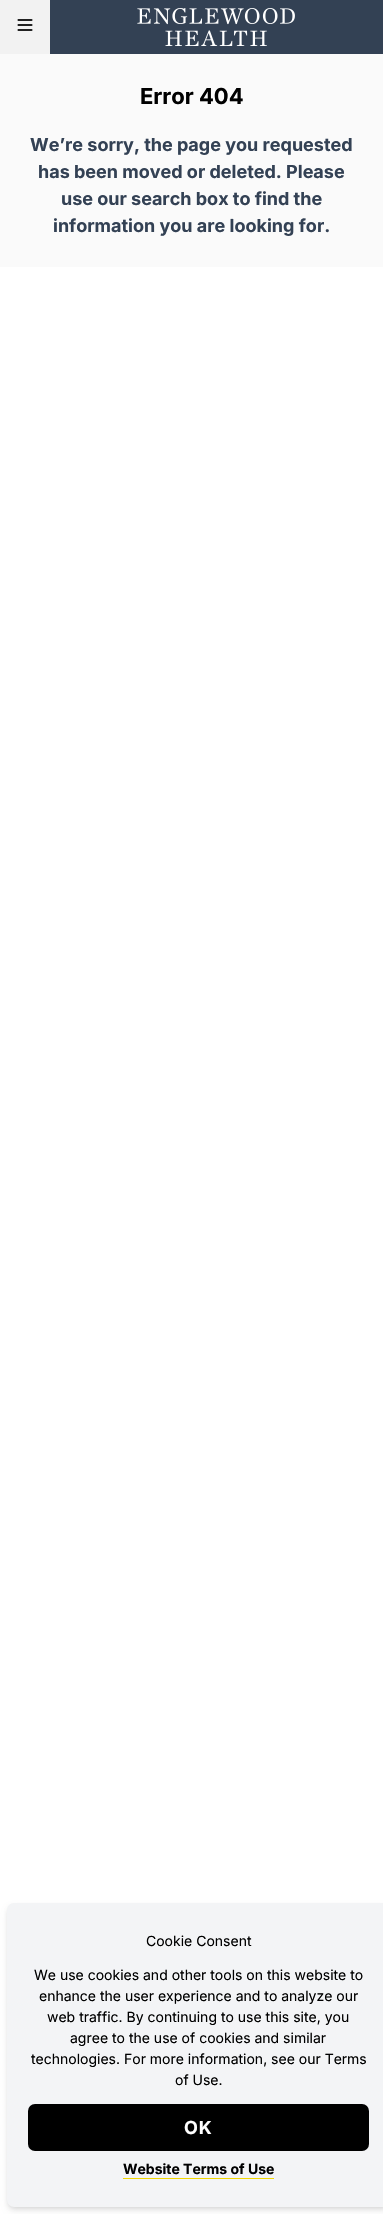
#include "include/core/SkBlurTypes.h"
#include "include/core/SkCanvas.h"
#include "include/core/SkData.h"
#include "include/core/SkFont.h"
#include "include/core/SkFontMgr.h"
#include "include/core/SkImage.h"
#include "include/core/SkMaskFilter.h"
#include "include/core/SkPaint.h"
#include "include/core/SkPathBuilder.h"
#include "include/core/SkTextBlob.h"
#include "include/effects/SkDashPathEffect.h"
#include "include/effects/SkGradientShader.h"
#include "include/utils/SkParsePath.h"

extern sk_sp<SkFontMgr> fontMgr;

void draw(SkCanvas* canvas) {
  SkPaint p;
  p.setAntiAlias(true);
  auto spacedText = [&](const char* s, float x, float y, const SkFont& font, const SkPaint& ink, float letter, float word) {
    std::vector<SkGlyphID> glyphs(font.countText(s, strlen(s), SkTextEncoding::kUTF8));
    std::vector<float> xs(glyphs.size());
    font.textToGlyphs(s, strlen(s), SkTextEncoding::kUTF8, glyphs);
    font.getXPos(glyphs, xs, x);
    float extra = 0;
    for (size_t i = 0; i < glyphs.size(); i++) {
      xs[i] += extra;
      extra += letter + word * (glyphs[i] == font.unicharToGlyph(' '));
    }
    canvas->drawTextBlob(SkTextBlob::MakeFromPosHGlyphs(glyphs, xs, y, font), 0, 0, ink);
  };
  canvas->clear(SK_ColorWHITE);
  p.setColor(SkColorSetRGB(242, 242, 242));
  canvas->drawRect(SkRect::MakeLTRB(0, 0, 50, 54), p);
  canvas->drawImageRect(SkImages::DeferredFromEncodedData(SkData::MakeFromFileName("images/1.png")), SkRect::MakeLTRB(17, 19, 33, 31), SkSamplingOptions());
  p.setColor(SkColorSetRGB(51, 65, 84));
  canvas->drawRect(SkRect::MakeLTRB(50, 0, 383, 54), p);
  canvas->drawImageRect(SkImages::DeferredFromEncodedData(SkData::MakeFromFileName("images/2.png")), SkRect::MakeLTRB(137, 8, 295, 46), SkSamplingOptions());
  p.setColor(SkColorSetRGB(250, 250, 250));
  canvas->drawRect(SkRect::MakeLTRB(0, 54, 383, 267), p);
  p.setColor(SkColorSetARGB(26, 0, 0, 0));
  p.setMaskFilter(SkMaskFilter::MakeBlur(kNormal_SkBlurStyle, 2));
  canvas->drawRoundRect(SkRect::MakeLTRB(9, 1907, 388, 2207), 5, 5, p);
  p.setMaskFilter(nullptr);
  p.setMaskFilter(SkMaskFilter::MakeBlur(kNormal_SkBlurStyle, 3));
  canvas->drawRoundRect(SkRect::MakeLTRB(8, 1908, 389, 2210), 6, 6, p);
  p.setMaskFilter(nullptr);
  p.setColor(SkColorSetRGB(243, 244, 246));
  canvas->drawRoundRect(SkRect::MakeLTRB(7, 1903, 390, 2207), 7, 7, p);
  p.setColor(SK_ColorBLACK);
  canvas->drawRoundRect(SkRect::MakeLTRB(28, 2104, 369, 2151), 7, 7, p);
  p.setColor(SkColorSetRGB(242, 215, 0));
  canvas->drawRect(SkRect::MakeLTRB(123, 2178, 274, 2179), p);
  SkFont font1(fontMgr->matchFamilyStyle("Inter", SkFontStyle::Bold()), 22);
  font1.setSubpixel(true);
  p.setColor(SK_ColorBLACK);
  canvas->drawString("Error 404", 140, 104, font1, p);
  SkFont font2(fontMgr->matchFamilyStyle("Inter", SkFontStyle::Bold()), 18);
  font2.setSubpixel(true);
  p.setColor(SkColorSetRGB(51, 65, 84));
  canvas->drawString("We’re sorry, the page you requested", 30, 151, font2, p);
  canvas->drawString("has been moved or deleted. Please", 38, 178, font2, p);
  canvas->drawString("use our search box to find the", 61, 205, font2, p);
  canvas->drawString("information you are looking for.", 53, 232, font2, p);
  SkFont font3(fontMgr->matchFamilyStyle("Inter", SkFontStyle::Normal()), 14);
  font3.setSubpixel(true);
  p.setColor(SK_ColorBLACK);
  canvas->drawString("Cookie Consent", 146, 1946, font3, p);
  canvas->drawString("We use cookies and other tools on this website to", 34, 1980, font3, p);
  canvas->drawString("enhance the user experience and to analyze our", 39, 2001, font3, p);
  canvas->drawString("web traffic. By continuing to use this site, you", 47, 2022, font3, p);
  canvas->drawString("agree to the use of cookies and similar", 70, 2043, font3, p);
  canvas->drawString("technologies. For more information, see our Terms", 31, 2064, font3, p);
  canvas->drawString("of Use.", 175, 2085, font3, p);
  p.setColor(SK_ColorWHITE);
  spacedText("OK", 184, 2134, font2, p, 1, 0);
  SkFont font4(fontMgr->matchFamilyStyle("Inter", SkFontStyle::Bold()), 14);
  font4.setSubpixel(true);
  p.setColor(SK_ColorBLACK);
  canvas->drawString("Website Terms of Use", 123, 2174, font4, p);
}
